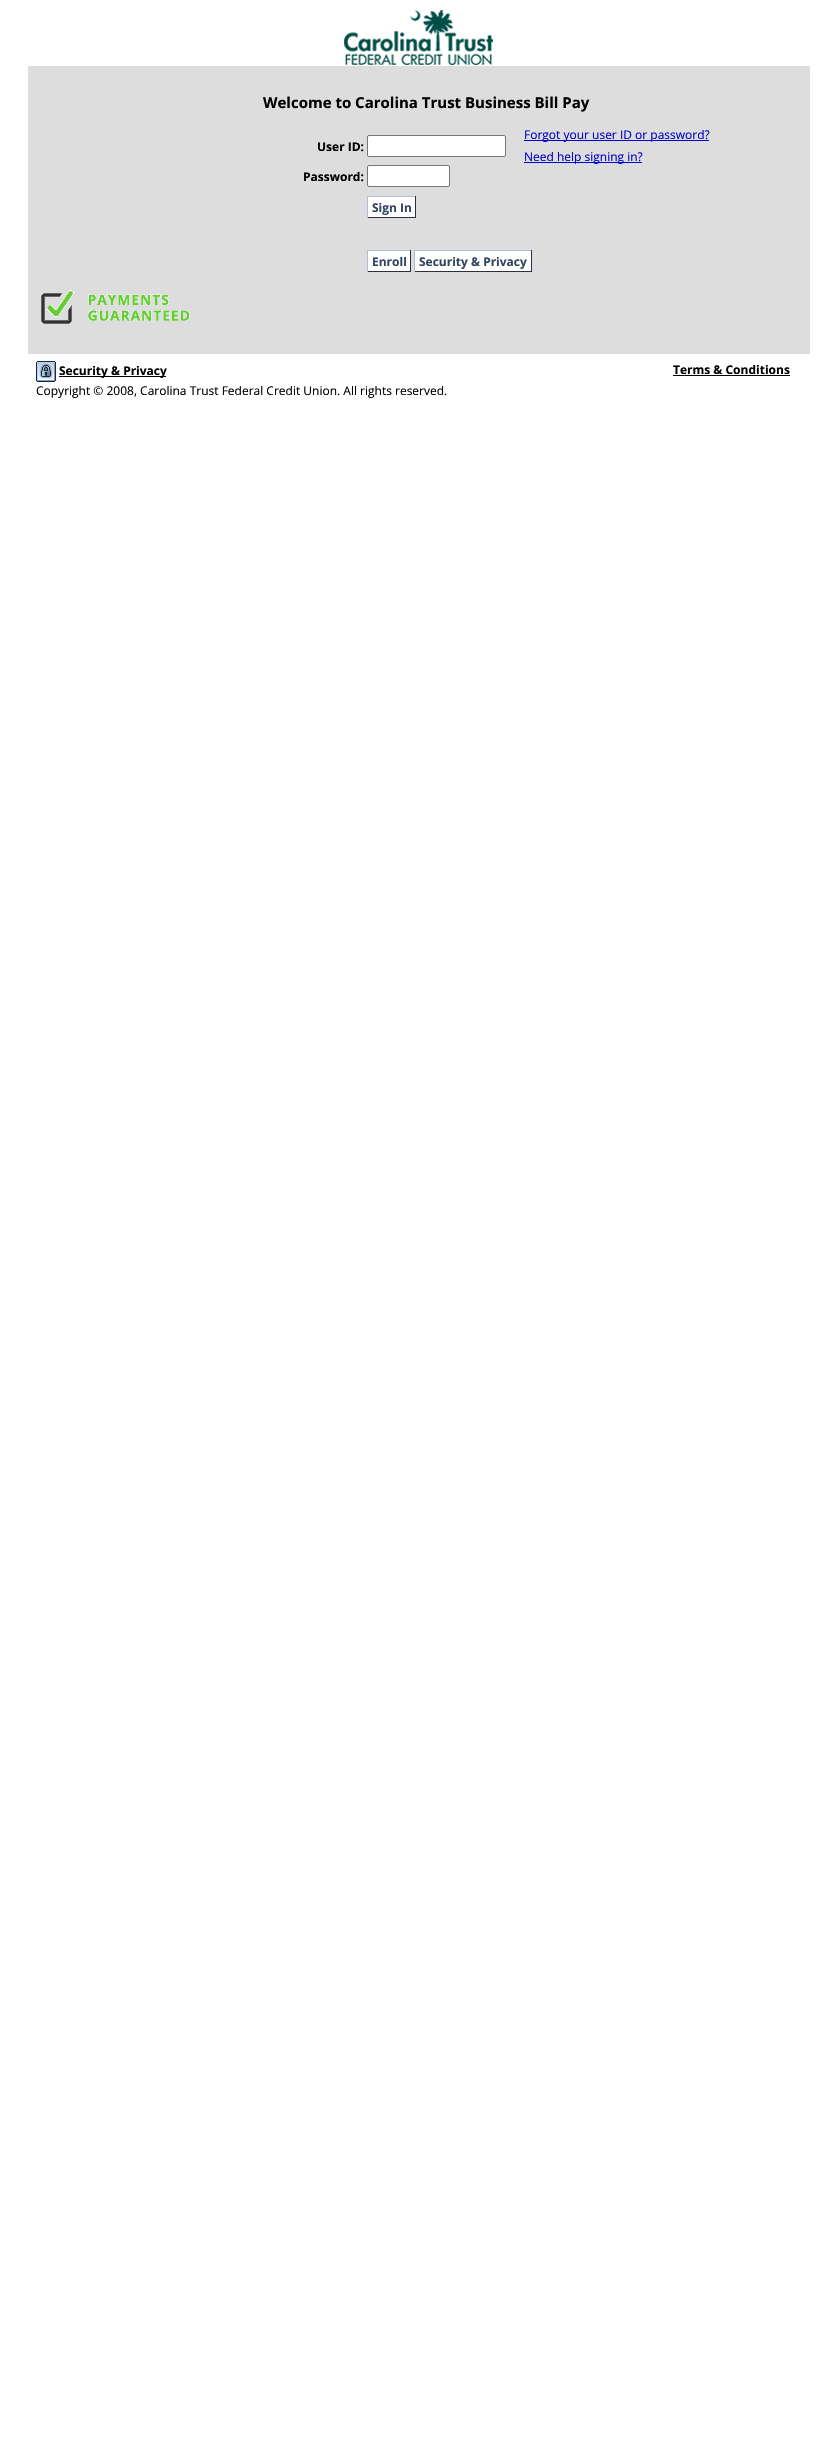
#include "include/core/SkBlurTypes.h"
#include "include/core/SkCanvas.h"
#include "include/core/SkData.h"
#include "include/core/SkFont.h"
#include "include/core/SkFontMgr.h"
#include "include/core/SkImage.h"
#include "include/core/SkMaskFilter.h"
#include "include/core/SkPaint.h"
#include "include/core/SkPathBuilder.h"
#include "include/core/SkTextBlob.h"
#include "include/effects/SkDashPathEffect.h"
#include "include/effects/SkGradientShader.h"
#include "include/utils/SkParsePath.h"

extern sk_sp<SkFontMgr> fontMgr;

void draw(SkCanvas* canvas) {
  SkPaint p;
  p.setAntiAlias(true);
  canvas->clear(SK_ColorWHITE);
  canvas->drawImageRect(SkImages::DeferredFromEncodedData(SkData::MakeFromFileName("images/1.png")), SkRect::MakeLTRB(344, 10, 493, 65), SkSamplingOptions());
  p.setColor(SkColorSetRGB(221, 221, 221));
  canvas->drawRect(SkRect::MakeLTRB(28, 66, 810, 354), p);
  p.setColor(SK_ColorWHITE);
  canvas->drawRoundRect(SkRect::MakeLTRB(367.5f, 135.5f, 505.5f, 156.5f), 1.5f, 1.5f, p);
  p.setStyle(SkPaint::kStroke_Style);
  p.setStrokeWidth(1);
  p.setColor(SkColorSetRGB(118, 118, 118));
  canvas->drawRoundRect(SkRect::MakeLTRB(367.5f, 135.5f, 505.5f, 156.5f), 1.5f, 1.5f, p);
  p.setStyle(SkPaint::kFill_Style);
  p.setColor(SK_ColorWHITE);
  canvas->drawRoundRect(SkRect::MakeLTRB(367.5f, 165.5f, 449.5f, 186.5f), 1.5f, 1.5f, p);
  p.setStyle(SkPaint::kStroke_Style);
  p.setColor(SkColorSetRGB(118, 118, 118));
  canvas->drawRoundRect(SkRect::MakeLTRB(367.5f, 165.5f, 449.5f, 186.5f), 1.5f, 1.5f, p);
  p.setStyle(SkPaint::kFill_Style);
  p.setColor(SK_ColorWHITE);
  canvas->drawRect(SkRect::MakeLTRB(368, 197, 415, 217), p);
  p.setColor(SkColorSetRGB(176, 191, 211));
  canvas->drawRect(SkRect::MakeLTRB(367, 196, 416, 197), p);
  p.setColor(SkColorSetRGB(40, 49, 67));
  canvas->drawRect(SkRect::MakeLTRB(415, 196, 416, 218), p);
  canvas->drawRect(SkRect::MakeLTRB(367, 217, 416, 218), p);
  p.setColor(SkColorSetRGB(176, 191, 211));
  canvas->drawRect(SkRect::MakeLTRB(367, 196, 368, 218), p);
  p.setColor(SkColorSetRGB(0, 0, 204));
  canvas->drawRect(SkRect::MakeLTRB(524, 140, 709, 141), p);
  canvas->drawRect(SkRect::MakeLTRB(524, 162, 642, 163), p);
  p.setColor(SK_ColorWHITE);
  canvas->drawRect(SkRect::MakeLTRB(368, 251, 410, 271), p);
  p.setColor(SkColorSetRGB(176, 191, 211));
  canvas->drawRect(SkRect::MakeLTRB(367, 250, 411, 251), p);
  p.setColor(SkColorSetRGB(40, 49, 67));
  canvas->drawRect(SkRect::MakeLTRB(410, 250, 411, 272), p);
  canvas->drawRect(SkRect::MakeLTRB(367, 271, 411, 272), p);
  p.setColor(SkColorSetRGB(176, 191, 211));
  canvas->drawRect(SkRect::MakeLTRB(367, 250, 368, 272), p);
  p.setColor(SK_ColorWHITE);
  canvas->drawRect(SkRect::MakeLTRB(415, 251, 531, 271), p);
  p.setColor(SkColorSetRGB(176, 191, 211));
  canvas->drawRect(SkRect::MakeLTRB(414, 250, 532, 251), p);
  p.setColor(SkColorSetRGB(40, 49, 67));
  canvas->drawRect(SkRect::MakeLTRB(531, 250, 532, 272), p);
  canvas->drawRect(SkRect::MakeLTRB(414, 271, 532, 272), p);
  p.setColor(SkColorSetRGB(176, 191, 211));
  canvas->drawRect(SkRect::MakeLTRB(414, 250, 415, 272), p);
  canvas->drawImageRect(SkImages::DeferredFromEncodedData(SkData::MakeFromFileName("images/2.png")), SkRect::MakeLTRB(41, 290, 190, 324), SkSamplingOptions());
  canvas->drawImageRect(SkImages::DeferredFromEncodedData(SkData::MakeFromFileName("images/3.png")), SkRect::MakeLTRB(36, 361, 56, 382), SkSamplingOptions());
  p.setColor(SK_ColorBLACK);
  canvas->drawRect(SkRect::MakeLTRB(59, 376, 166, 377), p);
  canvas->drawRect(SkRect::MakeLTRB(673, 375, 790, 376), p);
  SkFont font1(fontMgr->matchFamilyStyle("Open Sans", SkFontStyle::Bold()), 15);
  font1.setSubpixel(true);
  canvas->drawString("Welcome to Carolina Trust Business Bill Pay", 263, 108, font1, p);
  SkFont font2(fontMgr->matchFamilyStyle("Open Sans", SkFontStyle::Bold()), 12);
  font2.setSubpixel(true);
  canvas->drawString("User ID:", 317, 151, font2, p);
  canvas->drawString("Password:", 303, 181, font2, p);
  p.setColor(SkColorSetRGB(49, 69, 96));
  canvas->drawString("Sign In", 372, 212, font2, p);
  SkFont font3(fontMgr->matchFamilyStyle("Open Sans", SkFontStyle::Normal()), 12);
  font3.setSubpixel(true);
  p.setColor(SkColorSetRGB(0, 0, 204));
  canvas->drawString("Forgot your user ID or password?", 524, 139, font3, p);
  canvas->drawString("Need help signing in?", 524, 161, font3, p);
  p.setColor(SkColorSetRGB(49, 69, 96));
  canvas->drawString("Enroll", 372, 266, font2, p);
  canvas->drawString("Security & Privacy", 419, 266, font2, p);
  p.setColor(SK_ColorBLACK);
  canvas->drawString("Security & Privacy", 59, 375, font2, p);
  canvas->drawString("Copyright © 2008, Carolina Trust Federal Credit Union. All rights reserved.", 36, 395, font3, p);
  canvas->drawString("Terms & Conditions", 673, 374, font2, p);
}
